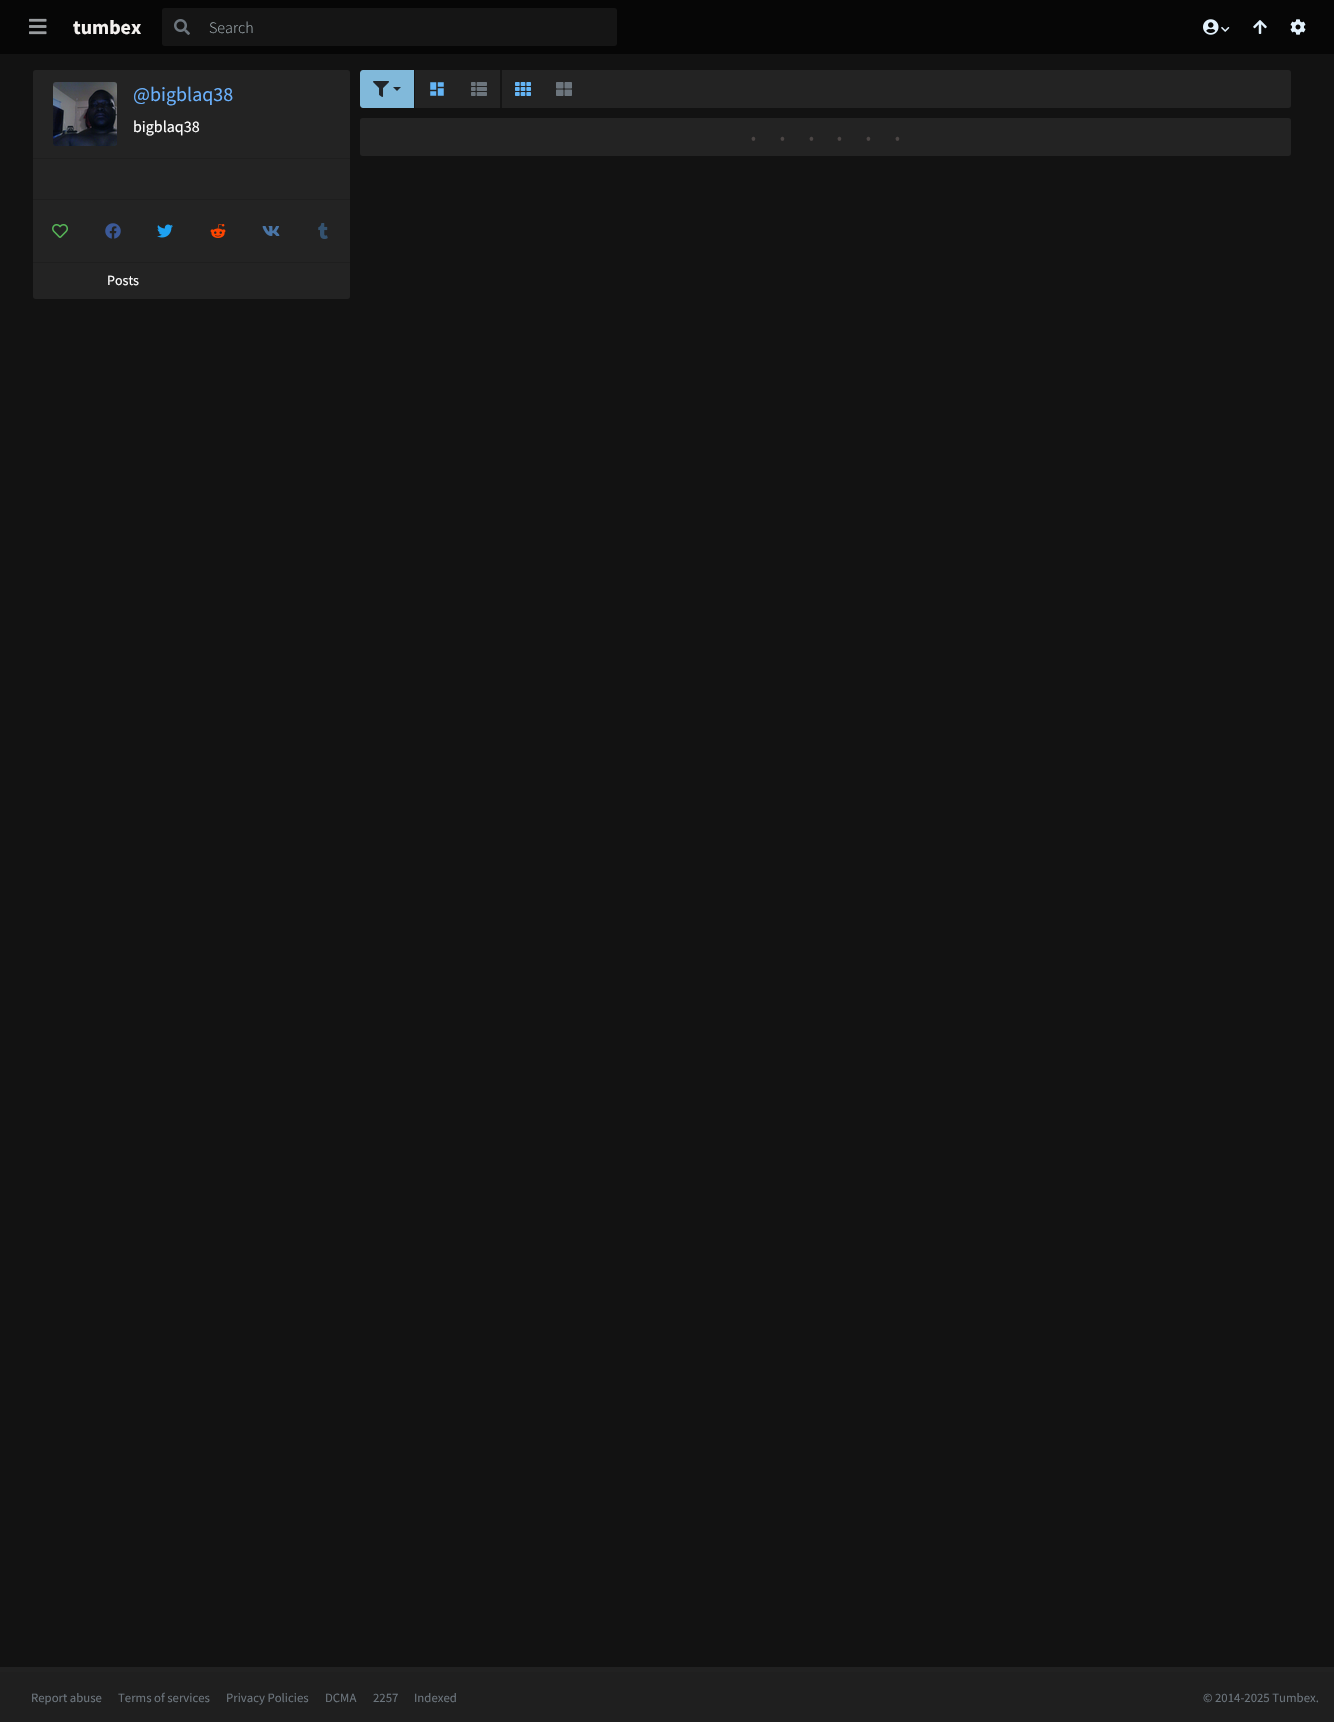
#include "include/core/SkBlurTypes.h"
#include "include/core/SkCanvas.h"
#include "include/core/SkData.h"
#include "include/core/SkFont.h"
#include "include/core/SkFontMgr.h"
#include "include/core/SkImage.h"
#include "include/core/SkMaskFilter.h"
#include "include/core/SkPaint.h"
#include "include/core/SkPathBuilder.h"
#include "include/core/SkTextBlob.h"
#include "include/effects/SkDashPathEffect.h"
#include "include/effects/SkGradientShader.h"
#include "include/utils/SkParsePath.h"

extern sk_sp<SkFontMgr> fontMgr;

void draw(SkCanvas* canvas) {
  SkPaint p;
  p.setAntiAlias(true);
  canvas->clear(SkColorSetRGB(18, 18, 18));
  p.setColor(SkColorSetRGB(6, 6, 6));
  canvas->drawRect(SkRect::MakeLTRB(0, 0, 1334, 54), p);
  canvas->drawImageRect(SkImages::DeferredFromEncodedData(SkData::MakeFromFileName("images/1.png")), SkRect::MakeLTRB(29, 18, 47, 35), SkSamplingOptions());
  p.setColor(SkColorSetRGB(21, 21, 21));
  canvas->drawRoundRect(SkRect::MakeLTRB(162, 8, 617, 46), 3, 3, p);
  canvas->drawImageRect(SkImages::DeferredFromEncodedData(SkData::MakeFromFileName("images/2.png")), SkRect::MakeLTRB(174, 19, 190, 35), SkSamplingOptions());
  canvas->drawImageRect(SkImages::DeferredFromEncodedData(SkData::MakeFromFileName("images/3.png")), SkRect::MakeLTRB(1203, 19, 1219, 35), SkSamplingOptions());
  canvas->drawImageRect(SkImages::DeferredFromEncodedData(SkData::MakeFromFileName("images/4.png")), SkRect::MakeLTRB(1221, 27, 1230, 32), SkSamplingOptions());
  canvas->drawImageRect(SkImages::DeferredFromEncodedData(SkData::MakeFromFileName("images/5.png")), SkRect::MakeLTRB(1253, 20, 1267, 34), SkSamplingOptions());
  canvas->drawImageRect(SkImages::DeferredFromEncodedData(SkData::MakeFromFileName("images/6.png")), SkRect::MakeLTRB(1290, 19, 1306, 35), SkSamplingOptions());
  p.setColor(SkColorSetRGB(35, 35, 35));
  canvas->drawRoundRect(SkRect::MakeLTRB(33, 70, 350, 299), 3, 3, p);
  p.setColor(SkColorSetRGB(30, 30, 30));
  canvas->drawRect(SkRect::MakeLTRB(33, 158, 350, 159), p);
  canvas->drawImageRect(SkImages::DeferredFromEncodedData(SkData::MakeFromFileName("images/7.png")), SkRect::MakeLTRB(53, 82, 117, 146), SkSamplingOptions());
  canvas->drawRect(SkRect::MakeLTRB(33, 199, 350, 200), p);
  canvas->drawRect(SkRect::MakeLTRB(33, 262, 350, 263), p);
  canvas->drawImageRect(SkImages::DeferredFromEncodedData(SkData::MakeFromFileName("images/8.png")), SkRect::MakeLTRB(52, 224, 68, 238), SkSamplingOptions());
  canvas->drawImageRect(SkImages::DeferredFromEncodedData(SkData::MakeFromFileName("images/9.png")), SkRect::MakeLTRB(105, 223, 121, 239), SkSamplingOptions());
  canvas->drawImageRect(SkImages::DeferredFromEncodedData(SkData::MakeFromFileName("images/10.png")), SkRect::MakeLTRB(157, 224, 173, 238), SkSamplingOptions());
  canvas->drawImageRect(SkImages::DeferredFromEncodedData(SkData::MakeFromFileName("images/11.png")), SkRect::MakeLTRB(210, 224, 226, 238), SkSamplingOptions());
  canvas->drawImageRect(SkImages::DeferredFromEncodedData(SkData::MakeFromFileName("images/12.png")), SkRect::MakeLTRB(262, 226, 280, 236), SkSamplingOptions());
  canvas->drawImageRect(SkImages::DeferredFromEncodedData(SkData::MakeFromFileName("images/13.png")), SkRect::MakeLTRB(318, 223, 328, 239), SkSamplingOptions());
  p.setColor(SkColorSetRGB(35, 35, 35));
  canvas->drawRoundRect(SkRect::MakeLTRB(360, 70, 1291, 108), 3, 3, p);
  p.setColor(SkColorSetRGB(21, 21, 21));
  canvas->drawRect(SkRect::MakeLTRB(414, 70, 415, 108), p);
  p.setColor(SkColorSetRGB(129, 185, 218));
  canvas->drawPath(SkPathBuilder().moveTo(363, 70).lineTo(414, 70).lineTo(414, 108).lineTo(363, 108).cubicTo(361.5f, 108, 360, 106.5f, 360, 105).lineTo(360, 73).cubicTo(360, 71.5f, 361.5f, 70, 363, 70).close().detach(), p);
  canvas->drawImageRect(SkImages::DeferredFromEncodedData(SkData::MakeFromFileName("images/14.png")), SkRect::MakeLTRB(373, 81, 389, 97), SkSamplingOptions());
  p.setColor(SkColorSetRGB(33, 37, 41));
  canvas->drawPath(SkPathBuilder().moveTo(393, 87).lineTo(401, 87).lineTo(397, 91).close().detach(), p);
  p.setColor(SkColorSetRGB(21, 21, 21));
  canvas->drawRect(SkRect::MakeLTRB(500, 70, 502, 108), p);
  canvas->drawImageRect(SkImages::DeferredFromEncodedData(SkData::MakeFromFileName("images/15.png")), SkRect::MakeLTRB(430, 82, 444, 96), SkSamplingOptions());
  canvas->drawImageRect(SkImages::DeferredFromEncodedData(SkData::MakeFromFileName("images/16.png")), SkRect::MakeLTRB(471, 82, 487, 96), SkSamplingOptions());
  canvas->drawImageRect(SkImages::DeferredFromEncodedData(SkData::MakeFromFileName("images/17.png")), SkRect::MakeLTRB(515, 82, 531, 96), SkSamplingOptions());
  canvas->drawImageRect(SkImages::DeferredFromEncodedData(SkData::MakeFromFileName("images/18.png")), SkRect::MakeLTRB(556, 82, 572, 96), SkSamplingOptions());
  p.setColor(SkColorSetRGB(35, 35, 35));
  canvas->drawRoundRect(SkRect::MakeLTRB(360, 118, 1291, 156), 3, 3, p);
  p.setColor(SkColorSetRGB(31, 31, 31));
  canvas->drawRect(SkRect::MakeLTRB(0, 1672, 1334, 1722), p);
  p.setColor(SkColorSetRGB(33, 33, 33));
  canvas->drawRect(SkRect::MakeLTRB(0, 1667, 1334, 1672), p);
  SkFont font1(fontMgr->matchFamilyStyle("Source Sans Pro", SkFontStyle::Bold()), 20);
  font1.setSubpixel(true);
  p.setColor(SkColorSetRGB(244, 241, 239));
  canvas->drawString("tumbex", 73, 34, font1, p);
  SkFont font2(fontMgr->matchFamilyStyle("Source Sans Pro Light", SkFontStyle(300, SkFontStyle::kNormal_Width, SkFontStyle::kUpright_Slant)), 16);
  font2.setSubpixel(true);
  p.setColor(SkColorSetRGB(158, 169, 174));
  canvas->drawString("Search", 209, 33, font2, p);
  SkFont font3(fontMgr->matchFamilyStyle("Source Sans Pro", SkFontStyle::Normal()), 20);
  font3.setSubpixel(true);
  p.setColor(SkColorSetRGB(106, 176, 251));
  canvas->drawString("@bigblaq38", 133, 101, font3, p);
  SkFont font4(fontMgr->matchFamilyStyle("Source Sans Pro", SkFontStyle::Normal()), 16);
  font4.setSubpixel(true);
  p.setColor(SK_ColorWHITE);
  canvas->drawString("bigblaq38", 133, 132, font4, p);
  SkFont font5(fontMgr->matchFamilyStyle("Source Sans Pro", SkFontStyle::Normal()), 14);
  font5.setSubpixel(true);
  canvas->drawString("Posts", 107, 285, font5, p);
  p.setColor(SkColorSetRGB(76, 70, 69));
  canvas->drawString("•", 751, 143, font4, p);
  canvas->drawString("•", 780, 143, font4, p);
  canvas->drawString("•", 809, 143, font4, p);
  canvas->drawString("•", 837, 143, font4, p);
  canvas->drawString("•", 866, 143, font4, p);
  canvas->drawString("•", 895, 143, font4, p);
  SkFont font6(fontMgr->matchFamilyStyle("Source Sans Pro", SkFontStyle::Normal()), 12.75f);
  font6.setSubpixel(true);
  p.setColor(SkColorSetRGB(108, 117, 125));
  canvas->drawString("Report abuse", 31, 1702, font6, p);
  canvas->drawString("Terms of services", 118, 1702, font6, p);
  canvas->drawString("Privacy Policies", 226, 1702, font6, p);
  canvas->drawString("DCMA", 325, 1702, font6, p);
  canvas->drawString("2257", 373, 1702, font6, p);
  canvas->drawString("Indexed", 414, 1702, font6, p);
  canvas->drawString("© 2014-2025 Tumbex.", 1203, 1702, font6, p);
}
